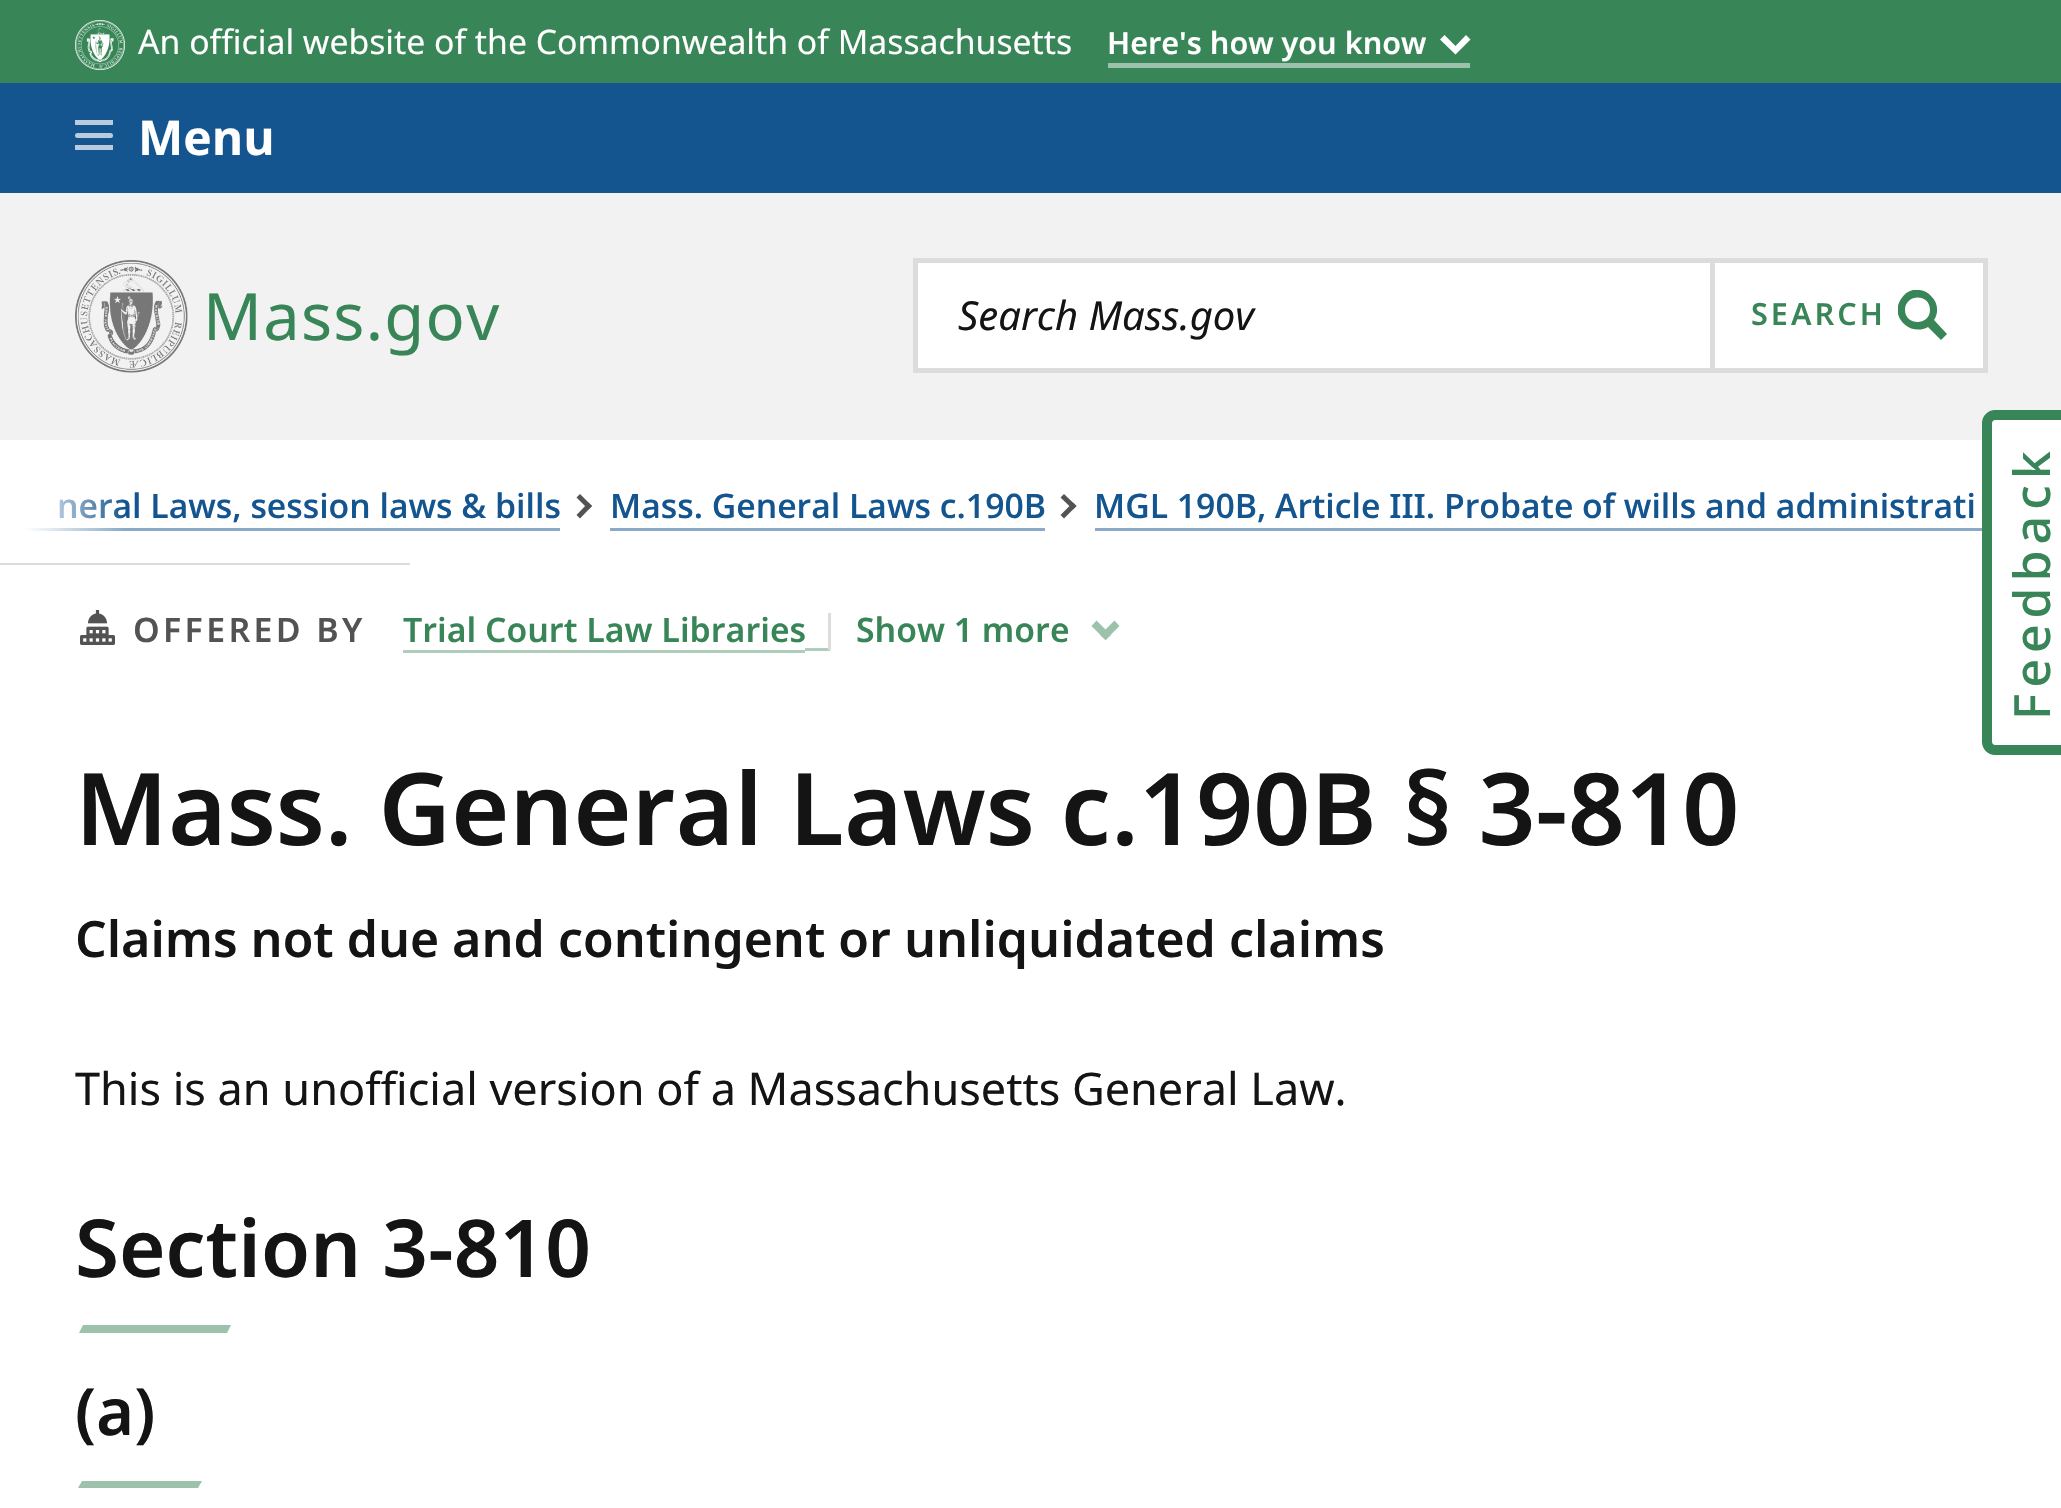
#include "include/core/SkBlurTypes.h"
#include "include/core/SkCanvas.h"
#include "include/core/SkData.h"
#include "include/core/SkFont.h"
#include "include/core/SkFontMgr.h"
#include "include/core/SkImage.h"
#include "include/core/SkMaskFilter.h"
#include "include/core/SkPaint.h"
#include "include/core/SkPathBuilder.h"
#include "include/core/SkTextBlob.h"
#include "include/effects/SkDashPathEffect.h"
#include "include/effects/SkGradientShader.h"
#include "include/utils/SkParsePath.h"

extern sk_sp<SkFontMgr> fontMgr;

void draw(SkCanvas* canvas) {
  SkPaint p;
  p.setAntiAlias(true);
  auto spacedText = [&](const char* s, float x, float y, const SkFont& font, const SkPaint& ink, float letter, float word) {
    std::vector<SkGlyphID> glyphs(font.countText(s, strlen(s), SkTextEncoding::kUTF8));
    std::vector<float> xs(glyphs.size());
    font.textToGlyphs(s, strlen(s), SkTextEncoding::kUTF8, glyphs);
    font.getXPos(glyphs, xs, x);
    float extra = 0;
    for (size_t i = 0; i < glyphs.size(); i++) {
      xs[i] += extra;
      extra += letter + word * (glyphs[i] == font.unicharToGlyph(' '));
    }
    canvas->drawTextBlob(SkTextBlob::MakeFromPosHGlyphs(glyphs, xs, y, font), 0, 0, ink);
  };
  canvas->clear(SK_ColorWHITE);
  p.setColor(SkColorSetRGB(56, 133, 87));
  canvas->drawRect(SkRect::MakeLTRB(0, 0, 2061, 83), p);
  canvas->drawImageRect(SkImages::DeferredFromEncodedData(SkData::MakeFromFileName("images/1.png")), SkRect::MakeLTRB(75, 20, 125, 70), SkSamplingOptions());
  p.setColor(SkColorSetRGB(156, 194, 171));
  canvas->drawRect(SkRect::MakeLTRB(1108, 63, 1470, 68), p);
  p.setColor(SK_ColorWHITE);
  canvas->drawPath(SkPathBuilder().moveTo(1455.5f, 54.5f).lineTo(1440, 39.5f).lineTo(1444.5f, 35).lineTo(1455.5f, 46).lineTo(1466, 35).lineTo(1470.5f, 39.5f).lineTo(1455.5f, 54.5f).detach(), p);
  p.setColor(SkColorSetRGB(242, 242, 242));
  canvas->drawRect(SkRect::MakeLTRB(0, 193, 2061, 440), p);
  p.setColor(SkColorSetRGB(20, 85, 143));
  canvas->drawRect(SkRect::MakeLTRB(0, 83, 2061, 193), p);
  p.setColor(SkColorSetRGB(185, 204, 221));
  canvas->drawRoundRect(SkRect::MakeLTRB(75, 133, 113, 138), 2.5f, 2.5f, p);
  canvas->drawRect(SkRect::MakeLTRB(75, 120, 113, 125), p);
  canvas->drawRect(SkRect::MakeLTRB(75, 145, 113, 150), p);
  canvas->drawImageRect(SkImages::DeferredFromEncodedData(SkData::MakeFromFileName("images/2.png")), SkRect::MakeLTRB(75, 260, 188, 373), SkSamplingOptions());
  p.setColor(SK_ColorWHITE);
  canvas->drawRect(SkRect::MakeLTRB(918, 263, 1710, 368), p);
  p.setStyle(SkPaint::kStroke_Style);
  p.setStrokeWidth(5);
  p.setColor(SkColorSetRGB(220, 220, 220));
  canvas->drawRect(SkRect::MakeLTRB(915.5f, 260.5f, 1985.5f, 370.5f), p);
  p.setStyle(SkPaint::kFill_Style);
  p.setColor(SK_ColorWHITE);
  canvas->drawRect(SkRect::MakeLTRB(1712.5f, 260.5f, 1985.5f, 370.5f), p);
  p.setStyle(SkPaint::kStroke_Style);
  p.setColor(SkColorSetRGB(220, 220, 220));
  canvas->drawRect(SkRect::MakeLTRB(1712.5f, 260.5f, 1985.5f, 370.5f), p);
  canvas->save();
  canvas->clipRect(SkRect::MakeLTRB(1898, 290, 1948, 340));
  p.setStyle(SkPaint::kFill_Style);
  p.setColor(SkColorSetRGB(56, 133, 87));
  canvas->drawPath(SkPathBuilder().moveTo(1947, 334).lineTo(1934, 320).cubicTo(1939, 313, 1938, 302, 1931, 296).cubicTo(1927, 291, 1920, 289, 1913, 290).cubicTo(1908, 291, 1904, 294, 1901, 299).cubicTo(1889, 316, 1910, 337, 1928, 327).lineTo(1941, 340).close().moveTo(1905, 310).cubicTo(1905, 294, 1930, 293, 1930, 310).cubicTo(1930, 326, 1905, 326, 1905, 310).close().detach(), p);
  canvas->restore();
  p.setColor(SkColorSetRGB(220, 220, 220));
  canvas->drawRect(SkRect::MakeLTRB(0, 563, 410, 565), p);
  p.setColor(SkColorSetRGB(138, 170, 199));
  canvas->drawRect(SkRect::MakeLTRB(26, 528, 560, 531), p);
  p.setColor(SkColorSetRGB(83, 83, 83));
  canvas->drawPath(SkPathBuilder().moveTo(576.5f, 497.5f).lineTo(580, 494).lineTo(592, 506).lineTo(588.5f, 509.5f).close().detach(), p);
  canvas->drawPath(SkPathBuilder().moveTo(576.5f, 515).lineTo(588.5f, 502.5f).lineTo(592, 506).lineTo(580, 518.5f).close().detach(), p);
  p.setColor(SkColorSetRGB(138, 170, 199));
  canvas->drawRect(SkRect::MakeLTRB(610, 528, 1045, 531), p);
  p.setColor(SkColorSetRGB(83, 83, 83));
  canvas->drawPath(SkPathBuilder().moveTo(1060.5f, 497.5f).lineTo(1064, 494).lineTo(1076.5f, 506).lineTo(1073, 509.5f).close().detach(), p);
  canvas->drawPath(SkPathBuilder().moveTo(1060.5f, 515).lineTo(1073, 502.5f).lineTo(1076.5f, 506).lineTo(1064, 518.5f).close().detach(), p);
  p.setColor(SkColorSetRGB(138, 170, 199));
  canvas->drawRect(SkRect::MakeLTRB(1095, 528, 1982, 531), p);
  p.setColor(SK_ColorWHITE);
  canvas->drawPath(SkPathBuilder().moveTo(1992, 742).lineTo(1992, 423).cubicTo(1992, 421, 1994, 420, 1995, 420).lineTo(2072, 420).lineTo(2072, 745).lineTo(1995, 745).cubicTo(1994, 745, 1992, 744, 1992, 742).close().detach(), p);
  p.setColor(SkColorSetRGB(56, 133, 87));
  canvas->drawPath(SkPathBuilder(SkPathFillType::kEvenOdd).moveTo(1982, 742).lineTo(1982, 423).cubicTo(1982, 416, 1988, 410, 1995, 410).lineTo(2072, 410).lineTo(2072, 755).lineTo(1995, 755).cubicTo(1988, 755, 1982, 749, 1982, 742).close().moveTo(1992, 742).lineTo(1992, 423).cubicTo(1992, 421, 1994, 420, 1995, 420).lineTo(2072, 420).lineTo(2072, 745).lineTo(1995, 745).cubicTo(1994, 745, 1992, 744, 1992, 742).close().detach(), p);
  canvas->drawImageRect(SkImages::DeferredFromEncodedData(SkData::MakeFromFileName("images/3.png")), SkRect::MakeLTRB(80, 610, 115, 645), SkSamplingOptions());
  p.setColor(SkColorSetRGB(175, 206, 188));
  canvas->drawRect(SkRect::MakeLTRB(805, 648, 830, 651), p);
  canvas->drawRect(SkRect::MakeLTRB(403, 650, 805, 653), p);
  p.setColor(SkColorSetRGB(220, 220, 220));
  canvas->drawRect(SkRect::MakeLTRB(828, 613, 831, 650), p);
  p.setColor(SkColorSetRGB(156, 194, 171));
  canvas->drawPath(SkPathBuilder().moveTo(1114.5f, 620.5f).lineTo(1119.5f, 626).lineTo(1105.5f, 640).lineTo(1100, 635).close().detach(), p);
  canvas->drawPath(SkPathBuilder().moveTo(1096.5f, 620.5f).lineTo(1111, 635).lineTo(1105.5f, 640).lineTo(1091.5f, 626).close().detach(), p);
  canvas->drawPath(SkPathBuilder().moveTo(83, 1325).lineTo(231, 1325).lineTo(227, 1333).lineTo(79, 1333).close().detach(), p);
  canvas->drawPath(SkPathBuilder().moveTo(82, 1481).lineTo(202, 1481).lineTo(198, 1488).lineTo(78, 1488).close().detach(), p);
  SkFont font1(fontMgr->matchFamilyStyle("Noto Sans", SkFontStyle::Normal()), 33.75f);
  font1.setSubpixel(true);
  p.setColor(SK_ColorWHITE);
  canvas->drawString("An official website of the Commonwealth of Massachusetts", 138, 54, font1, p);
  SkFont font2(fontMgr->matchFamilyStyle("Noto Sans", SkFontStyle(600, SkFontStyle::kNormal_Width, SkFontStyle::kUpright_Slant)), 30.6f);
  font2.setSubpixel(true);
  canvas->drawString("Here's how you know", 1107, 54, font2, p);
  SkFont font3(fontMgr->matchFamilyStyle("Noto Sans", SkFontStyle::Bold()), 48);
  font3.setSubpixel(true);
  canvas->drawString("Menu", 138, 155, font3, p);
  SkFont font4(fontMgr->matchFamilyStyle("Noto Sans", SkFontStyle::Normal()), 65);
  font4.setSubpixel(true);
  p.setColor(SkColorSetRGB(56, 133, 87));
  spacedText("Mass.gov", 203, 340, font4, p, 1.25f, 0);
  SkFont font5(fontMgr->matchFamilyStyle("Noto Sans", SkFontStyle::Italic()), 40);
  font5.setSubpixel(true);
  p.setColor(SkColorSetRGB(20, 20, 20));
  canvas->drawString("Search Mass.gov", 958, 330, font5, p);
  p.setColor(SkColorSetRGB(56, 133, 87));
  spacedText("SEARCH", 1751, 325, font2, p, 3, 0);
  SkFont font6(fontMgr->matchFamilyStyle("Noto Sans", SkFontStyle(500, SkFontStyle::kNormal_Width, SkFontStyle::kUpright_Slant)), 33.75f);
  font6.setSubpixel(true);
  p.setColor(SkColorSetRGB(20, 85, 143));
  canvas->drawString("neral Laws, session laws & bills", 57, 518, font6, p);
  canvas->drawString("Mass. General Laws c.190B", 610, 518, font6, p);
  canvas->drawString("MGL 190B, Article III. Probate of wills and administrati", 1094, 518, font6, p);
  {
    const SkColor colors[] = {SK_ColorWHITE, SkColorSetARGB(0, 255, 255, 255)};
    const float stops[] = {0.2f, 1};
    const SkPoint ends[] = {{0, 488}, {125, 488}};
    p.setShader(SkGradientShader::MakeLinear(ends, colors, stops, 2, SkTileMode::kClamp));
    p.setAlpha(255);
  }
  canvas->drawRect(SkRect::MakeLTRB(26, 499, 123, 531), p);
  SkFont font7(fontMgr->matchFamilyStyle("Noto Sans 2", SkFontStyle(500, SkFontStyle::kNormal_Width, SkFontStyle::kUpright_Slant)), 50);
  font7.setSubpixel(true);
  p.setShader(nullptr);
  p.setColor(SkColorSetRGB(56, 133, 87));
  canvas->save();
  canvas->rotate(-90, 2050, 720);
  spacedText("Feedback", 2050, 720, font7, p, 6, 0);
  canvas->restore();
  SkFont font8(fontMgr->matchFamilyStyle("Noto Sans", SkFontStyle(600, SkFontStyle::kNormal_Width, SkFontStyle::kUpright_Slant)), 33.75f);
  font8.setSubpixel(true);
  p.setColor(SkColorSetRGB(83, 83, 83));
  spacedText("OFFERED BY", 133, 642, font8, p, 3.4f, 0);
  p.setColor(SkColorSetRGB(56, 133, 87));
  canvas->drawString("Trial Court Law Libraries", 403, 642, font8, p);
  canvas->drawString("Show 1 more", 856, 642, font8, p);
  SkFont font9(fontMgr->matchFamilyStyle("Noto Sans", SkFontStyle(600, SkFontStyle::kNormal_Width, SkFontStyle::kUpright_Slant)), 100);
  font9.setSubpixel(true);
  p.setColor(SkColorSetRGB(20, 20, 20));
  canvas->drawString("Mass. General Laws c.190B § 3-810", 75, 845, font9, p);
  SkFont font10(fontMgr->matchFamilyStyle("Noto Sans", SkFontStyle(600, SkFontStyle::kNormal_Width, SkFontStyle::kUpright_Slant)), 50);
  font10.setSubpixel(true);
  canvas->drawString("Claims not due and contingent or unliquidated claims", 75, 957, font10, p);
  SkFont font11(fontMgr->matchFamilyStyle("Noto Sans", SkFontStyle::Normal()), 45);
  font11.setSubpixel(true);
  canvas->drawString("This is an unofficial version of a Massachusetts General Law.", 75, 1105, font11, p);
  SkFont font12(fontMgr->matchFamilyStyle("Noto Sans", SkFontStyle(600, SkFontStyle::kNormal_Width, SkFontStyle::kUpright_Slant)), 80);
  font12.setSubpixel(true);
  canvas->drawString("Section 3-810", 75, 1277, font12, p);
  SkFont font13(fontMgr->matchFamilyStyle("Noto Sans", SkFontStyle(600, SkFontStyle::kNormal_Width, SkFontStyle::kUpright_Slant)), 65);
  font13.setSubpixel(true);
  canvas->drawString("(a)", 75, 1435, font13, p);
}
